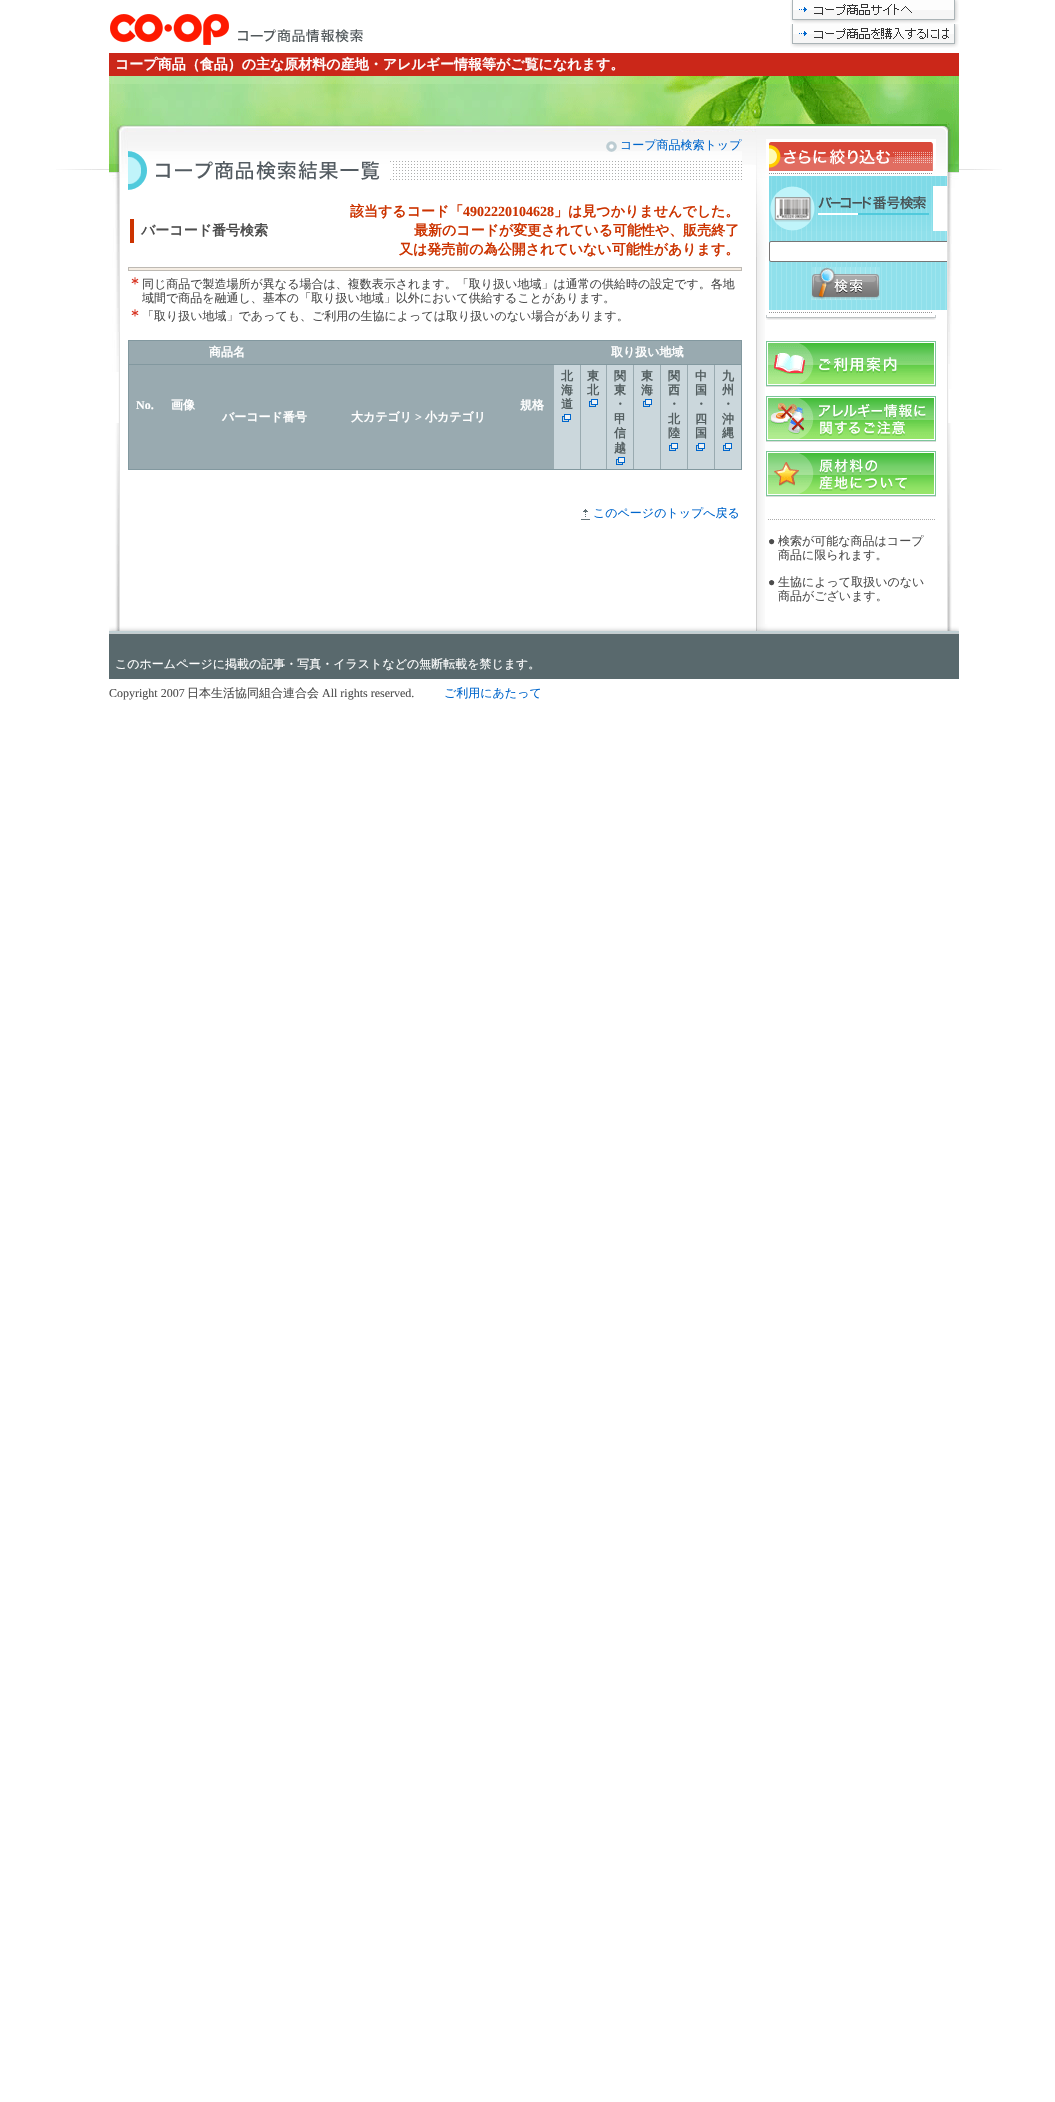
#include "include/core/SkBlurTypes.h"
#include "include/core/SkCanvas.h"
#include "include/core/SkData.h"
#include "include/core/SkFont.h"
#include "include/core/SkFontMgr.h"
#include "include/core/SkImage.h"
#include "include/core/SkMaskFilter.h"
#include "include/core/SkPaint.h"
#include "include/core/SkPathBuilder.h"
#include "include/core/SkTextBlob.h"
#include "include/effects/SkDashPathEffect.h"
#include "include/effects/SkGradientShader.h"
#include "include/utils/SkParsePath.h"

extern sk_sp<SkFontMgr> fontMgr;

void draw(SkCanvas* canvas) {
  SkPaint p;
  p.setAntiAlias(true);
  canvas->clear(SK_ColorWHITE);
  canvas->drawImageRect(SkImages::DeferredFromEncodedData(SkData::MakeFromFileName("images/1.png")), SkRect::MakeLTRB(110, 14, 363, 45), SkSamplingOptions());
  canvas->drawImageRect(SkImages::DeferredFromEncodedData(SkData::MakeFromFileName("images/2.png")), SkRect::MakeLTRB(790, 0, 959, 24), SkSamplingOptions());
  canvas->drawImageRect(SkImages::DeferredFromEncodedData(SkData::MakeFromFileName("images/3.png")), SkRect::MakeLTRB(790, 24, 959, 48), SkSamplingOptions());
  p.setColor(SkColorSetRGB(203, 39, 25));
  canvas->drawRect(SkRect::MakeLTRB(109, 53, 959, 76), p);
  canvas->drawImageRect(SkImages::DeferredFromEncodedData(SkData::MakeFromFileName("images/4.png")), SkRect::MakeLTRB(109, 76, 959, 124), SkSamplingOptions());
  canvas->drawImageRect(SkImages::DeferredFromEncodedData(SkData::MakeFromFileName("images/5.png")), SkRect::MakeLTRB(56, 169, 109, 170), SkSamplingOptions());
  canvas->drawImageRect(SkImages::DeferredFromEncodedData(SkData::MakeFromFileName("images/6.png")), SkRect::MakeLTRB(118, 372, 120, 389), SkSamplingOptions());
  canvas->drawImageRect(SkImages::DeferredFromEncodedData(SkData::MakeFromFileName("images/7.png")), SkRect::MakeLTRB(109, 124, 128, 372), SkSamplingOptions());
  canvas->drawImageRect(SkImages::DeferredFromEncodedData(SkData::MakeFromFileName("images/8.png")), SkRect::MakeLTRB(128, 124, 742, 190), SkSamplingOptions());
  canvas->drawImageRect(SkImages::DeferredFromEncodedData(SkData::MakeFromFileName("images/9.png")), SkRect::MakeLTRB(606, 141, 617, 152), SkSamplingOptions());
  p.setColor(SkColorSetRGB(204, 51, 0));
  canvas->drawRect(SkRect::MakeLTRB(130, 219, 134, 243), p);
  p.setColor(SkColorSetRGB(189, 185, 179));
  canvas->drawRect(SkRect::MakeLTRB(128, 267, 742, 271), p);
  p.setColor(SkColorSetRGB(245, 237, 227));
  canvas->drawRect(SkRect::MakeLTRB(129, 268, 741, 270), p);
  canvas->drawImageRect(SkImages::DeferredFromEncodedData(SkData::MakeFromFileName("images/10.png")), SkRect::MakeLTRB(131, 277, 139, 285), SkSamplingOptions());
  canvas->drawImageRect(SkImages::DeferredFromEncodedData(SkData::MakeFromFileName("images/10.png")), SkRect::MakeLTRB(131, 309, 139, 317), SkSamplingOptions());
  p.setColor(SkColorSetRGB(130, 152, 159));
  canvas->drawRect(SkRect::MakeLTRB(128, 340, 742, 470), p);
  p.setColor(SkColorSetRGB(153, 170, 176));
  canvas->drawRect(SkRect::MakeLTRB(129, 341, 741, 364), p);
  canvas->drawRect(SkRect::MakeLTRB(129, 365, 715, 469), p);
  p.setColor(SkColorSetRGB(203, 215, 220));
  canvas->drawRect(SkRect::MakeLTRB(554, 365, 580, 469), p);
  canvas->drawImageRect(SkImages::DeferredFromEncodedData(SkData::MakeFromFileName("images/11.png")), SkRect::MakeLTRB(562, 414, 571, 422), SkSamplingOptions());
  canvas->drawRect(SkRect::MakeLTRB(581, 365, 606, 469), p);
  canvas->drawImageRect(SkImages::DeferredFromEncodedData(SkData::MakeFromFileName("images/11.png")), SkRect::MakeLTRB(589, 399, 598, 407), SkSamplingOptions());
  canvas->drawRect(SkRect::MakeLTRB(607, 365, 633, 469), p);
  canvas->drawImageRect(SkImages::DeferredFromEncodedData(SkData::MakeFromFileName("images/11.png")), SkRect::MakeLTRB(616, 457, 625, 465), SkSamplingOptions());
  canvas->drawRect(SkRect::MakeLTRB(634, 365, 660, 469), p);
  canvas->drawImageRect(SkImages::DeferredFromEncodedData(SkData::MakeFromFileName("images/11.png")), SkRect::MakeLTRB(643, 399, 652, 407), SkSamplingOptions());
  canvas->drawRect(SkRect::MakeLTRB(661, 365, 687, 469), p);
  canvas->drawImageRect(SkImages::DeferredFromEncodedData(SkData::MakeFromFileName("images/11.png")), SkRect::MakeLTRB(669, 443, 678, 451), SkSamplingOptions());
  canvas->drawRect(SkRect::MakeLTRB(688, 365, 714, 469), p);
  canvas->drawImageRect(SkImages::DeferredFromEncodedData(SkData::MakeFromFileName("images/11.png")), SkRect::MakeLTRB(696, 443, 705, 451), SkSamplingOptions());
  canvas->drawRect(SkRect::MakeLTRB(715, 365, 741, 469), p);
  canvas->drawImageRect(SkImages::DeferredFromEncodedData(SkData::MakeFromFileName("images/11.png")), SkRect::MakeLTRB(723, 443, 732, 451), SkSamplingOptions());
  canvas->drawImageRect(SkImages::DeferredFromEncodedData(SkData::MakeFromFileName("images/12.png")), SkRect::MakeLTRB(581, 509, 590, 520), SkSamplingOptions());
  canvas->drawImageRect(SkImages::DeferredFromEncodedData(SkData::MakeFromFileName("images/13.png")), SkRect::MakeLTRB(742, 124, 756, 165), SkSamplingOptions());
  canvas->drawImageRect(SkImages::DeferredFromEncodedData(SkData::MakeFromFileName("images/14.png")), SkRect::MakeLTRB(947, 364, 954, 389), SkSamplingOptions());
  canvas->drawImageRect(SkImages::DeferredFromEncodedData(SkData::MakeFromFileName("images/17.png")), SkRect::MakeLTRB(756, 124, 947, 257), SkSamplingOptions());
  canvas->drawImageRect(SkImages::DeferredFromEncodedData(SkData::MakeFromFileName("images/22.png")), SkRect::MakeLTRB(769, 241, 947, 300), SkSamplingOptions());
  p.setColor(SK_ColorWHITE);
  canvas->drawRoundRect(SkRect::MakeLTRB(769.5f, 241.5f, 953.5f, 261.5f), 1.5f, 1.5f, p);
  p.setStyle(SkPaint::kStroke_Style);
  p.setStrokeWidth(1);
  p.setColor(SkColorSetRGB(118, 118, 118));
  canvas->drawRoundRect(SkRect::MakeLTRB(769.5f, 241.5f, 953.5f, 261.5f), 1.5f, 1.5f, p);
  canvas->drawImageRect(SkImages::DeferredFromEncodedData(SkData::MakeFromFileName("images/15.png")), SkRect::MakeLTRB(947, 124, 959, 364), SkSamplingOptions());
  canvas->drawImageRect(SkImages::DeferredFromEncodedData(SkData::MakeFromFileName("images/16.png")), SkRect::MakeLTRB(756, 257, 765, 624), SkSamplingOptions());
  p.setStyle(SkPaint::kFill_Style);
  p.setColor(SK_ColorWHITE);
  canvas->drawRect(SkRect::MakeLTRB(766, 139, 936, 169), p);
  canvas->drawImageRect(SkImages::DeferredFromEncodedData(SkData::MakeFromFileName("images/18.png")), SkRect::MakeLTRB(769, 142, 933, 174), SkSamplingOptions());
  canvas->drawImageRect(SkImages::DeferredFromEncodedData(SkData::MakeFromFileName("images/19.png")), SkRect::MakeLTRB(769, 176, 947, 186), SkSamplingOptions());
  canvas->drawImageRect(SkImages::DeferredFromEncodedData(SkData::MakeFromFileName("images/20.png")), SkRect::MakeLTRB(769, 186, 933, 231), SkSamplingOptions());
  canvas->drawImageRect(SkImages::DeferredFromEncodedData(SkData::MakeFromFileName("images/21.png")), SkRect::MakeLTRB(769, 231, 947, 241), SkSamplingOptions());
  canvas->drawImageRect(SkImages::DeferredFromEncodedData(SkData::MakeFromFileName("images/23.png")), SkRect::MakeLTRB(811, 267, 880, 300), SkSamplingOptions());
  canvas->drawImageRect(SkImages::DeferredFromEncodedData(SkData::MakeFromFileName("images/21.png")), SkRect::MakeLTRB(769, 300, 947, 310), SkSamplingOptions());
  canvas->drawImageRect(SkImages::DeferredFromEncodedData(SkData::MakeFromFileName("images/24.png")), SkRect::MakeLTRB(769, 312, 932, 313), SkSamplingOptions());
  canvas->drawImageRect(SkImages::DeferredFromEncodedData(SkData::MakeFromFileName("images/25.png")), SkRect::MakeLTRB(766, 315, 936, 320), SkSamplingOptions());
  canvas->drawImageRect(SkImages::DeferredFromEncodedData(SkData::MakeFromFileName("images/26.png")), SkRect::MakeLTRB(766, 341, 936, 387), SkSamplingOptions());
  canvas->drawImageRect(SkImages::DeferredFromEncodedData(SkData::MakeFromFileName("images/27.png")), SkRect::MakeLTRB(766, 396, 936, 442), SkSamplingOptions());
  canvas->drawImageRect(SkImages::DeferredFromEncodedData(SkData::MakeFromFileName("images/28.png")), SkRect::MakeLTRB(766, 451, 936, 497), SkSamplingOptions());
  canvas->drawImageRect(SkImages::DeferredFromEncodedData(SkData::MakeFromFileName("images/29.png")), SkRect::MakeLTRB(768, 519, 935, 520), SkSamplingOptions());
  canvas->drawImageRect(SkImages::DeferredFromEncodedData(SkData::MakeFromFileName("images/30.png")), SkRect::MakeLTRB(118, 389, 120, 413), SkSamplingOptions());
  canvas->drawImageRect(SkImages::DeferredFromEncodedData(SkData::MakeFromFileName("images/31.png")), SkRect::MakeLTRB(947, 389, 949, 413), SkSamplingOptions());
  canvas->drawImageRect(SkImages::DeferredFromEncodedData(SkData::MakeFromFileName("images/32.png")), SkRect::MakeLTRB(118, 413, 120, 624), SkSamplingOptions());
  canvas->drawImageRect(SkImages::DeferredFromEncodedData(SkData::MakeFromFileName("images/33.png")), SkRect::MakeLTRB(115, 423, 119, 624), SkSamplingOptions());
  canvas->drawImageRect(SkImages::DeferredFromEncodedData(SkData::MakeFromFileName("images/34.png")), SkRect::MakeLTRB(947, 413, 949, 624), SkSamplingOptions());
  canvas->drawImageRect(SkImages::DeferredFromEncodedData(SkData::MakeFromFileName("images/35.png")), SkRect::MakeLTRB(948, 423, 952, 624), SkSamplingOptions());
  canvas->drawImageRect(SkImages::DeferredFromEncodedData(SkData::MakeFromFileName("images/36.png")), SkRect::MakeLTRB(109, 624, 959, 634), SkSamplingOptions());
  canvas->drawImageRect(SkImages::DeferredFromEncodedData(SkData::MakeFromFileName("images/37.png")), SkRect::MakeLTRB(959, 169, 1002, 170), SkSamplingOptions());
  p.setColor(SkColorSetRGB(89, 105, 109));
  canvas->drawRect(SkRect::MakeLTRB(109, 634, 959, 679), p);
  SkFont font1(fontMgr->matchFamilyStyle("WenQuanYi Zen Hei", SkFontStyle::Bold()), 14);
  font1.setSubpixel(true);
  p.setColor(SK_ColorWHITE);
  canvas->drawString("コープ商品（食品）の主な原材料の産地・アレルギー情報等がご覧になれます。", 115, 69, font1, p);
  SkFont font2(fontMgr->matchFamilyStyle("WenQuanYi Zen Hei", SkFontStyle(500, SkFontStyle::kNormal_Width, SkFontStyle::kUpright_Slant)), 12);
  font2.setSubpixel(true);
  p.setColor(SkColorSetRGB(0, 102, 204));
  canvas->drawString("コープ商品検索トップ", 620, 149, font2, p);
  p.setColor(SkColorSetRGB(76, 76, 76));
  canvas->drawString("バーコード番号検索", 141, 235, font1, p);
  p.setColor(SkColorSetRGB(204, 51, 0));
  canvas->drawString("該当するコード「", 350, 216, font1, p);
  SkFont font3(fontMgr->matchFamilyStyle("Liberation Serif", SkFontStyle::Bold()), 14);
  font3.setSubpixel(true);
  canvas->drawString("4902220104628", 463, 216, font3, p);
  canvas->drawString("」は見つかりませんでした。", 554, 216, font1, p);
  canvas->drawString("最新のコードが変更されている可能性や、販売終了", 414, 235, font1, p);
  canvas->drawString("又は発売前の為公開されていない可能性があります。", 399, 254, font1, p);
  p.setColor(SkColorSetRGB(76, 76, 76));
  canvas->drawString("同じ商品で製造場所が異なる場合は、複数表示されます。「取り扱い地域」は通常の供給時の設定です。各地", 142, 288, font2, p);
  canvas->drawString("域間で商品を融通し、基本の「取り扱い地域」以外において供給することがあります。", 142, 302, font2, p);
  canvas->drawString("「取り扱い地域」であっても、ご利用の生協によっては取り扱いのない場合があります。", 142, 320, font2, p);
  SkFont font4(fontMgr->matchFamilyStyle("WenQuanYi Zen Hei", SkFontStyle::Bold()), 12);
  font4.setSubpixel(true);
  p.setColor(SK_ColorWHITE);
  canvas->drawString("商品名", 209, 356, font4, p);
  canvas->drawString("取り扱い地域", 611, 356, font4, p);
  SkFont font5(fontMgr->matchFamilyStyle("Liberation Serif", SkFontStyle::Bold()), 12);
  font5.setSubpixel(true);
  canvas->drawString("No.", 136, 409, font5, p);
  canvas->drawString("画像", 171, 409, font4, p);
  canvas->drawString("規格", 520, 409, font4, p);
  canvas->drawString("バーコード番号", 222, 421, font4, p);
  canvas->drawString("大カテゴリ", 351, 421, font4, p);
  canvas->drawString(">", 415, 421, font5, p);
  canvas->drawString("小カテゴリ", 425, 421, font4, p);
  p.setColor(SkColorSetRGB(82, 93, 95));
  canvas->drawString("北", 561, 380, font4, p);
  canvas->drawString("海", 561, 394, font4, p);
  canvas->drawString("道", 561, 408, font4, p);
  canvas->drawString("東", 587, 380, font4, p);
  canvas->drawString("北", 587, 394, font4, p);
  canvas->drawString("関", 614, 380, font4, p);
  canvas->drawString("東", 614, 394, font4, p);
  canvas->drawString("・", 614, 408, font4, p);
  canvas->drawString("甲", 614, 423, font4, p);
  canvas->drawString("信", 614, 437, font4, p);
  canvas->drawString("越", 614, 452, font4, p);
  canvas->drawString("東", 641, 380, font4, p);
  canvas->drawString("海", 641, 394, font4, p);
  canvas->drawString("関", 668, 380, font4, p);
  canvas->drawString("西", 668, 394, font4, p);
  canvas->drawString("・", 668, 408, font4, p);
  canvas->drawString("北", 668, 423, font4, p);
  canvas->drawString("陸", 668, 437, font4, p);
  canvas->drawString("中", 695, 380, font4, p);
  canvas->drawString("国", 695, 394, font4, p);
  canvas->drawString("・", 695, 408, font4, p);
  canvas->drawString("四", 695, 423, font4, p);
  canvas->drawString("国", 695, 437, font4, p);
  canvas->drawString("九", 722, 380, font4, p);
  canvas->drawString("州", 722, 394, font4, p);
  canvas->drawString("・", 722, 408, font4, p);
  canvas->drawString("沖", 722, 423, font4, p);
  canvas->drawString("縄", 722, 437, font4, p);
  p.setColor(SkColorSetRGB(0, 102, 204));
  canvas->drawString("このページのトップへ戻る", 593, 517, font2, p);
  SkFont font6(fontMgr->matchFamilyStyle("Liberation Serif", SkFontStyle::Normal()), 12);
  font6.setSubpixel(true);
  p.setColor(SkColorSetRGB(76, 76, 76));
  canvas->drawString("●", 768, 545, font6, p);
  canvas->drawString("検索が可能な商品はコープ", 778, 545, font2, p);
  canvas->drawString("商品に限られます。", 778, 559, font2, p);
  canvas->drawString("●", 768, 586, font6, p);
  canvas->drawString("生協によって取扱いのない", 778, 586, font2, p);
  canvas->drawString("商品がございます。", 778, 600, font2, p);
  p.setColor(SK_ColorWHITE);
  canvas->drawString("このホームページに掲載の記事・写真・イラストなどの無断転載を禁じます。", 115, 668, font2, p);
  p.setColor(SkColorSetRGB(76, 76, 76));
  canvas->drawString("Copyright 2007", 109, 697, font6, p);
  canvas->drawString("日本生活協同組合連合会", 187, 697, font2, p);
  canvas->drawString("All rights reserved.", 322, 697, font6, p);
  p.setColor(SkColorSetRGB(0, 102, 204));
  canvas->drawString("ご利用にあたって", 444, 697, font2, p);
}
